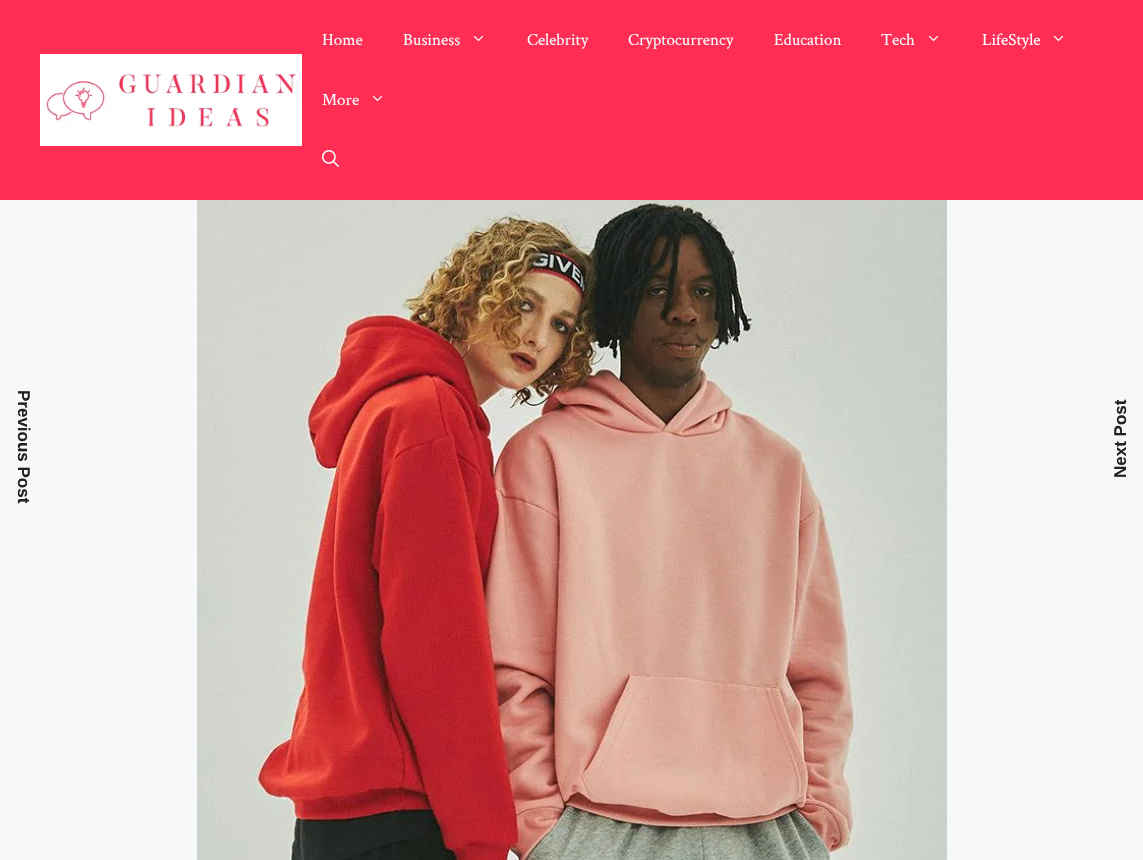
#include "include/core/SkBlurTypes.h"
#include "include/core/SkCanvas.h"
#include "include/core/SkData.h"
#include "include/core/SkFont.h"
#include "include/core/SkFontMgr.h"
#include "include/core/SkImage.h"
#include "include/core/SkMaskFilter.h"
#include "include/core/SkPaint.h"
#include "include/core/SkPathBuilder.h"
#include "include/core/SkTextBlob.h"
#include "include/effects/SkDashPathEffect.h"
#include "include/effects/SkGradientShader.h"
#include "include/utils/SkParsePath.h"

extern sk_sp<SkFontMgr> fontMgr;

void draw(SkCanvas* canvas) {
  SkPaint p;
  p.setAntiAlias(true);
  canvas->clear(SkColorSetRGB(247, 248, 249));
  p.setColor(SkColorSetRGB(255, 44, 84));
  canvas->drawRect(SkRect::MakeLTRB(0, 0, 1143, 200), p);
  canvas->drawImageRect(SkImages::DeferredFromEncodedData(SkData::MakeFromFileName("images/1.png")), SkRect::MakeLTRB(40, 54, 302, 146), SkSamplingOptions());
  canvas->drawImageRect(SkImages::DeferredFromEncodedData(SkData::MakeFromFileName("images/2.png")), SkRect::MakeLTRB(473, 35, 484, 42), SkSamplingOptions());
  canvas->drawImageRect(SkImages::DeferredFromEncodedData(SkData::MakeFromFileName("images/2.png")), SkRect::MakeLTRB(928, 35, 939, 42), SkSamplingOptions());
  canvas->drawImageRect(SkImages::DeferredFromEncodedData(SkData::MakeFromFileName("images/3.png")), SkRect::MakeLTRB(1053, 35, 1064, 42), SkSamplingOptions());
  canvas->drawImageRect(SkImages::DeferredFromEncodedData(SkData::MakeFromFileName("images/2.png")), SkRect::MakeLTRB(372, 95, 383, 102), SkSamplingOptions());
  canvas->drawImageRect(SkImages::DeferredFromEncodedData(SkData::MakeFromFileName("images/4.png")), SkRect::MakeLTRB(322, 150, 339, 167), SkSamplingOptions());
  canvas->drawImageRect(SkImages::DeferredFromEncodedData(SkData::MakeFromFileName("images/5.png")), SkRect::MakeLTRB(197, 200, 947, 860), SkSamplingOptions());
  SkFont font1(fontMgr->matchFamilyStyle("Crimson Text", SkFontStyle::Normal()), 17);
  font1.setSubpixel(true);
  p.setColor(SkColorSetRGB(247, 248, 249));
  canvas->drawString("Home", 322, 45, font1, p);
  canvas->drawString("Business", 403, 45, font1, p);
  canvas->drawString("Celebrity", 527, 45, font1, p);
  canvas->drawString("Cryptocurrency", 628, 45, font1, p);
  canvas->drawString("Education", 774, 45, font1, p);
  canvas->drawString("Tech", 881, 45, font1, p);
  p.setColor(SK_ColorWHITE);
  canvas->drawString("LifeStyle", 982, 45, font1, p);
  p.setColor(SkColorSetRGB(247, 248, 249));
  canvas->drawString("More", 322, 105, font1, p);
  SkFont font2(fontMgr->matchFamilyStyle("Liberation Sans", SkFontStyle::Bold()), 17);
  font2.setSubpixel(true);
  p.setColor(SkColorSetRGB(34, 34, 34));
  canvas->save();
  canvas->rotate(90, 18, 390);
  canvas->drawString("Previous Post", 18, 390, font2, p);
  canvas->restore();
  canvas->save();
  canvas->rotate(-90, 1126, 478);
  canvas->drawString("Next Post", 1126, 478, font2, p);
  canvas->restore();
}
